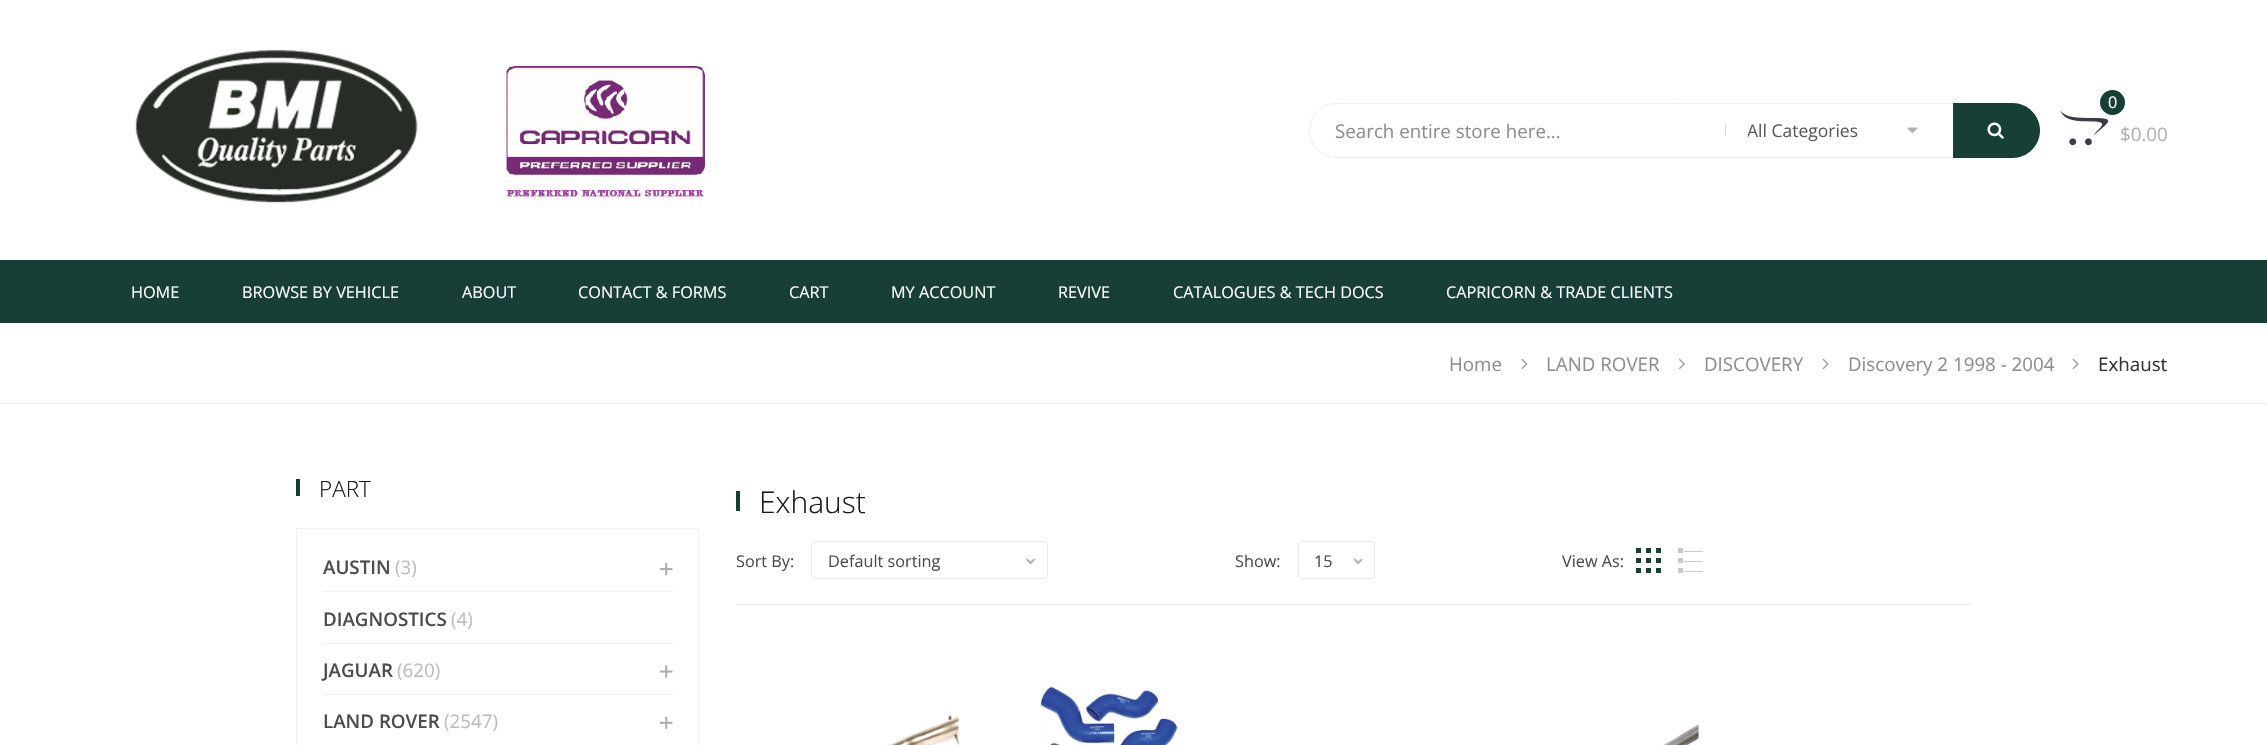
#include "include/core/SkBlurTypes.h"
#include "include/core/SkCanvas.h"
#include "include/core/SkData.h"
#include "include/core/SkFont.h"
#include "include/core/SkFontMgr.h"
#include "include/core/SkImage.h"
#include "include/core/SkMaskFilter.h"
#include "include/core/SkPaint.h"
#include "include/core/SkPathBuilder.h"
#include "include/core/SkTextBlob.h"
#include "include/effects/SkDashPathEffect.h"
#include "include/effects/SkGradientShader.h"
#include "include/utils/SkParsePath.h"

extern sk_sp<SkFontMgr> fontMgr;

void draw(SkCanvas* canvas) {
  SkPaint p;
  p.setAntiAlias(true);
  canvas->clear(SK_ColorWHITE);
  canvas->drawImageRect(SkImages::DeferredFromEncodedData(SkData::MakeFromFileName("images/1.png")), SkRect::MakeLTRB(135, 49, 705, 203), SkSamplingOptions());
  p.setStyle(SkPaint::kStroke_Style);
  p.setStrokeWidth(1);
  p.setColor(SkColorSetRGB(238, 238, 238));
  canvas->drawRoundRect(SkRect::MakeLTRB(1309.5f, 103.5f, 2039.5f, 157.5f), 27, 27, p);
  p.setStyle(SkPaint::kFill_Style);
  p.setColor(SkColorSetRGB(216, 216, 216));
  canvas->drawRect(SkRect::MakeLTRB(1725, 124, 1726, 136), p);
  canvas->drawImageRect(SkImages::DeferredFromEncodedData(SkData::MakeFromFileName("images/2.png")), SkRect::MakeLTRB(1907, 127, 1918, 133), SkSamplingOptions());
  p.setColor(SkColorSetRGB(23, 63, 55));
  canvas->drawPath(SkPathBuilder().moveTo(1953, 103).lineTo(2012.5f, 103).cubicTo(2027.5f, 103, 2040, 115.5f, 2040, 130.5f).cubicTo(2040, 145.5f, 2027.5f, 158, 2012.5f, 158).lineTo(1953, 158).close().detach(), p);
  canvas->drawImageRect(SkImages::DeferredFromEncodedData(SkData::MakeFromFileName("images/3.png")), SkRect::MakeLTRB(1987, 122, 2004, 139), SkSamplingOptions());
  canvas->drawImageRect(SkImages::DeferredFromEncodedData(SkData::MakeFromFileName("images/4.png")), SkRect::MakeLTRB(2060, 110, 2109, 146), SkSamplingOptions());
  canvas->drawCircle(2112.5f, 102.5f, 12.5f, p);
  canvas->drawRect(SkRect::MakeLTRB(0, 260, 2267, 323), p);
  p.setColor(SkColorSetRGB(240, 240, 240));
  canvas->drawRect(SkRect::MakeLTRB(0, 403, 2267, 404), p);
  canvas->drawImageRect(SkImages::DeferredFromEncodedData(SkData::MakeFromFileName("images/5.png")), SkRect::MakeLTRB(1521, 358, 1528, 370), SkSamplingOptions());
  canvas->drawImageRect(SkImages::DeferredFromEncodedData(SkData::MakeFromFileName("images/6.png")), SkRect::MakeLTRB(1679, 358, 1685, 370), SkSamplingOptions());
  canvas->drawImageRect(SkImages::DeferredFromEncodedData(SkData::MakeFromFileName("images/7.png")), SkRect::MakeLTRB(1822, 358, 1829, 370), SkSamplingOptions());
  canvas->drawImageRect(SkImages::DeferredFromEncodedData(SkData::MakeFromFileName("images/7.png")), SkRect::MakeLTRB(2072, 358, 2079, 370), SkSamplingOptions());
  p.setColor(SkColorSetRGB(23, 63, 55));
  canvas->drawRect(SkRect::MakeLTRB(296, 479, 300, 496), p);
  p.setStyle(SkPaint::kStroke_Style);
  p.setColor(SkColorSetRGB(240, 240, 240));
  canvas->drawRect(SkRect::MakeLTRB(296.5f, 528.5f, 698.5f, 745.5f), p);
  p.setStyle(SkPaint::kFill_Style);
  canvas->drawRect(SkRect::MakeLTRB(323, 591, 673, 592), p);
  canvas->drawImageRect(SkImages::DeferredFromEncodedData(SkData::MakeFromFileName("images/8.png")), SkRect::MakeLTRB(660, 562, 673, 576), SkSamplingOptions());
  canvas->drawRect(SkRect::MakeLTRB(323, 643, 673, 644), p);
  canvas->drawRect(SkRect::MakeLTRB(323, 694, 673, 695), p);
  canvas->drawImageRect(SkImages::DeferredFromEncodedData(SkData::MakeFromFileName("images/9.png")), SkRect::MakeLTRB(660, 665, 673, 678), SkSamplingOptions());
  canvas->drawImageRect(SkImages::DeferredFromEncodedData(SkData::MakeFromFileName("images/10.png")), SkRect::MakeLTRB(660, 716, 673, 730), SkSamplingOptions());
  p.setColor(SkColorSetRGB(23, 63, 55));
  canvas->drawRect(SkRect::MakeLTRB(736, 491, 740, 511), p);
  canvas->drawImageRect(SkImages::DeferredFromEncodedData(SkData::MakeFromFileName("images/11.png")), SkRect::MakeLTRB(1026, 554, 1036, 564), SkSamplingOptions());
  p.setStyle(SkPaint::kStroke_Style);
  p.setColor(SkColorSetRGB(234, 234, 234));
  canvas->drawRoundRect(SkRect::MakeLTRB(811.5f, 541.5f, 1047.5f, 578.5f), 3.5f, 3.5f, p);
  canvas->drawImageRect(SkImages::DeferredFromEncodedData(SkData::MakeFromFileName("images/12.png")), SkRect::MakeLTRB(1353, 554, 1363, 564), SkSamplingOptions());
  canvas->drawRoundRect(SkRect::MakeLTRB(1298.5f, 541.5f, 1374.5f, 578.5f), 3.5f, 3.5f, p);
  p.setStyle(SkPaint::kFill_Style);
  p.setColor(SkColorSetRGB(23, 63, 55));
  canvas->drawRect(SkRect::MakeLTRB(1636, 548, 1641, 553), p);
  canvas->drawRect(SkRect::MakeLTRB(1646, 548, 1651, 553), p);
  canvas->drawRect(SkRect::MakeLTRB(1656, 548, 1661, 553), p);
  canvas->drawRect(SkRect::MakeLTRB(1636, 558, 1641, 563), p);
  canvas->drawRect(SkRect::MakeLTRB(1646, 558, 1651, 563), p);
  canvas->drawRect(SkRect::MakeLTRB(1656, 558, 1661, 563), p);
  canvas->drawRect(SkRect::MakeLTRB(1636, 568, 1641, 573), p);
  canvas->drawRect(SkRect::MakeLTRB(1646, 568, 1651, 573), p);
  canvas->drawRect(SkRect::MakeLTRB(1656, 568, 1661, 573), p);
  p.setColor(SkColorSetRGB(201, 201, 201));
  canvas->drawRect(SkRect::MakeLTRB(1678, 548, 1683, 553), p);
  canvas->drawRect(SkRect::MakeLTRB(1684, 551, 1703, 552), p);
  canvas->drawRect(SkRect::MakeLTRB(1678, 558, 1683, 563), p);
  canvas->drawRect(SkRect::MakeLTRB(1684, 561, 1703, 562), p);
  canvas->drawRect(SkRect::MakeLTRB(1678, 568, 1683, 573), p);
  canvas->drawRect(SkRect::MakeLTRB(1684, 571, 1703, 572), p);
  p.setColor(SkColorSetRGB(234, 234, 234));
  canvas->drawRect(SkRect::MakeLTRB(736, 604, 1971, 605), p);
  canvas->drawImageRect(SkImages::DeferredFromEncodedData(SkData::MakeFromFileName("images/13.png")), SkRect::MakeLTRB(885, 714, 959, 745), SkSamplingOptions());
  canvas->drawImageRect(SkImages::DeferredFromEncodedData(SkData::MakeFromFileName("images/14.png")), SkRect::MakeLTRB(1040, 686, 1179, 745), SkSamplingOptions());
  canvas->drawImageRect(SkImages::DeferredFromEncodedData(SkData::MakeFromFileName("images/15.png")), SkRect::MakeLTRB(1663, 724, 1699, 745), SkSamplingOptions());
  SkFont font1(fontMgr->matchFamilyStyle("Open Sans", SkFontStyle::Normal()), 18.75f);
  font1.setSubpixel(true);
  p.setColor(SkColorSetRGB(142, 142, 142));
  canvas->drawString("Search entire store here...", 1335, 138, font1, p);
  canvas->save();
  canvas->clipRect(SkRect::MakeLTRB(1748, 105, 1908, 155));
  SkFont font2(fontMgr->matchFamilyStyle("Open Sans", SkFontStyle::Normal()), 17.5f);
  font2.setSubpixel(true);
  p.setColor(SkColorSetRGB(92, 92, 92));
  canvas->drawString("All Categories", 1747, 137, font2, p);
  canvas->restore();
  SkFont font3(fontMgr->matchFamilyStyle("Open Sans", SkFontStyle::Normal()), 16.25f);
  font3.setSubpixel(true);
  p.setColor(SK_ColorWHITE);
  canvas->drawString("0", 2108, 108, font3, p);
  p.setColor(SkColorSetRGB(176, 176, 176));
  canvas->drawString("$0.00", 2120, 141, font1, p);
  p.setColor(SK_ColorWHITE);
  canvas->drawString("HOME", 131, 298, font3, p);
  canvas->drawString("BROWSE BY VEHICLE", 242, 298, font3, p);
  canvas->drawString("ABOUT", 462, 298, font3, p);
  canvas->drawString("CONTACT & FORMS", 578, 298, font3, p);
  canvas->drawString("CART", 789, 298, font3, p);
  canvas->drawString("MY ACCOUNT", 891, 298, font3, p);
  canvas->drawString("REVIVE", 1058, 298, font3, p);
  canvas->drawString("CATALOGUES & TECH DOCS", 1173, 298, font3, p);
  canvas->drawString("CAPRICORN & TRADE CLIENTS", 1446, 298, font3, p);
  p.setColor(SkColorSetRGB(142, 142, 142));
  canvas->drawString("Home", 1449, 371, font1, p);
  canvas->drawString("LAND ROVER", 1546, 371, font1, p);
  canvas->drawString("DISCOVERY", 1704, 371, font1, p);
  canvas->drawString("Discovery 2 1998 - 2004", 1848, 371, font1, p);
  p.setColor(SkColorSetRGB(52, 52, 52));
  canvas->drawString("Exhaust", 2098, 371, font1, p);
  SkFont font4(fontMgr->matchFamilyStyle("Open Sans", SkFontStyle(300, SkFontStyle::kNormal_Width, SkFontStyle::kUpright_Slant)), 22.5f);
  font4.setSubpixel(true);
  p.setColor(SkColorSetRGB(26, 26, 26));
  canvas->drawString("PART", 319, 497, font4, p);
  SkFont font5(fontMgr->matchFamilyStyle("Open Sans", SkFontStyle(600, SkFontStyle::kNormal_Width, SkFontStyle::kUpright_Slant)), 18.75f);
  font5.setSubpixel(true);
  p.setColor(SkColorSetRGB(77, 77, 77));
  canvas->drawString("AUSTIN", 323, 574, font5, p);
  p.setColor(SkColorSetRGB(188, 188, 188));
  canvas->drawString("(3)", 395, 574, font1, p);
  p.setColor(SkColorSetRGB(77, 77, 77));
  canvas->drawString("DIAGNOSTICS", 323, 626, font5, p);
  p.setColor(SkColorSetRGB(188, 188, 188));
  canvas->drawString("(4)", 451, 626, font1, p);
  p.setColor(SkColorSetRGB(77, 77, 77));
  canvas->drawString("JAGUAR", 323, 677, font5, p);
  p.setColor(SkColorSetRGB(188, 188, 188));
  canvas->drawString("(620)", 397, 677, font1, p);
  p.setColor(SkColorSetRGB(77, 77, 77));
  canvas->drawString("LAND ROVER", 323, 728, font5, p);
  p.setColor(SkColorSetRGB(188, 188, 188));
  canvas->drawString("(2547)", 444, 728, font1, p);
  SkFont font6(fontMgr->matchFamilyStyle("Open Sans", SkFontStyle(300, SkFontStyle::kNormal_Width, SkFontStyle::kUpright_Slant)), 30);
  font6.setSubpixel(true);
  p.setColor(SkColorSetRGB(26, 26, 26));
  canvas->drawString("Exhaust", 759, 513, font6, p);
  p.setColor(SkColorSetRGB(77, 77, 77));
  canvas->drawString("Sort By:", 736, 567, font3, p);
  canvas->drawString("Default sorting", 828, 567, font3, p);
  canvas->drawString("Show:", 1235, 567, font3, p);
  canvas->drawString("15", 1314, 567, font3, p);
  canvas->drawString("View As:", 1562, 567, font3, p);
}
